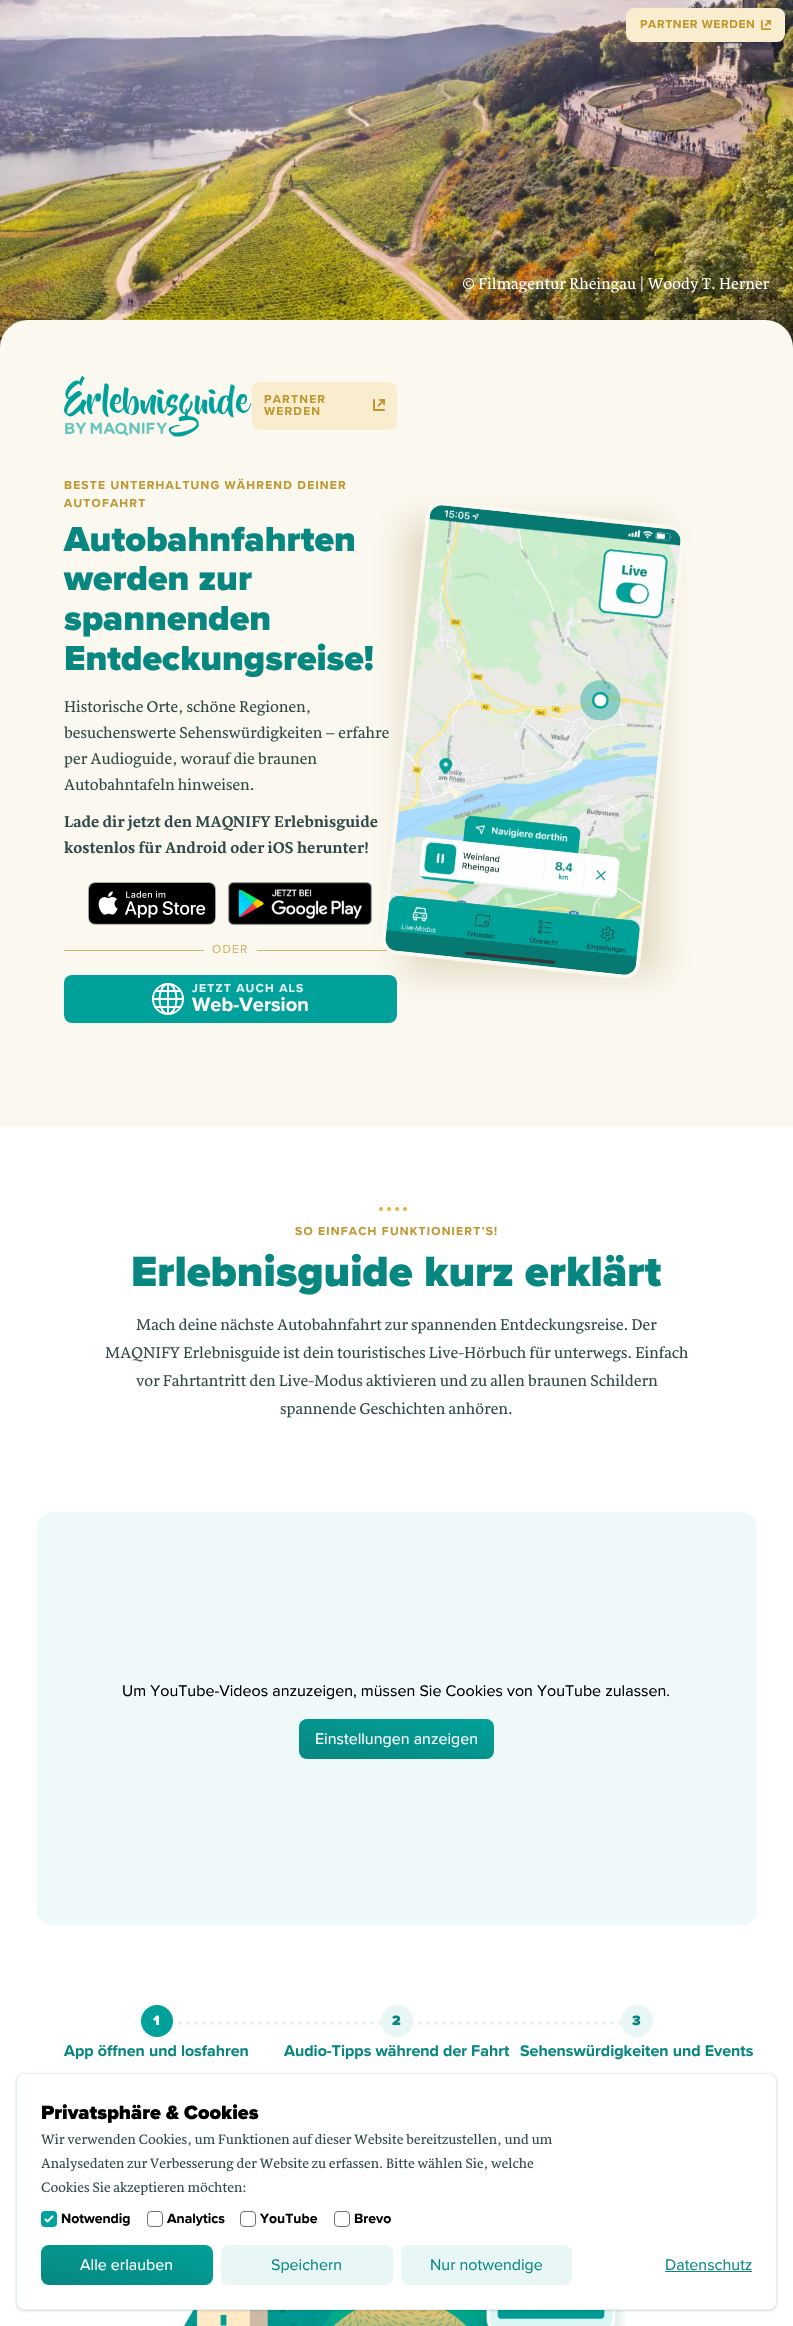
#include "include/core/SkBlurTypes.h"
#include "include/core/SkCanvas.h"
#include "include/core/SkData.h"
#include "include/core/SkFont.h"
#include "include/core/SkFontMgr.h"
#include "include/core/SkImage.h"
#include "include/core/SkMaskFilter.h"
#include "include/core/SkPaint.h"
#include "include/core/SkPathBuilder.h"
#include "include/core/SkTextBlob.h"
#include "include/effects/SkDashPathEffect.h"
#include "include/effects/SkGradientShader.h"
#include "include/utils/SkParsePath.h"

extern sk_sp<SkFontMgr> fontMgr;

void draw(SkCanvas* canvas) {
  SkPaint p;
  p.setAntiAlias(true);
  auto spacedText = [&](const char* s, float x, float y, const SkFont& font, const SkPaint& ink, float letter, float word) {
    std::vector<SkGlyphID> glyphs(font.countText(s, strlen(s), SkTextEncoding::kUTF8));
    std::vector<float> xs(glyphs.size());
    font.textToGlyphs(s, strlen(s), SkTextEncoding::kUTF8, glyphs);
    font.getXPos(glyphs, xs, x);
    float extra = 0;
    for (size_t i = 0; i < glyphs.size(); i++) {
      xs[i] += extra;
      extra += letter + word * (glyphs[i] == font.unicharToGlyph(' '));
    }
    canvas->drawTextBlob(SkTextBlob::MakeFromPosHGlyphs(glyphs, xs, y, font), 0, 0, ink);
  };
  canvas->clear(SK_ColorWHITE);
  canvas->drawImageRect(SkImages::DeferredFromEncodedData(SkData::MakeFromFileName("images/1.png")), SkRect::MakeLTRB(0, 0, 793, 348), SkSamplingOptions());
  p.setColor(SkColorSetRGB(248, 237, 207));
  canvas->drawRoundRect(SkRect::MakeLTRB(626, 8, 785, 42), 8, 8, p);
  canvas->drawImageRect(SkImages::DeferredFromEncodedData(SkData::MakeFromFileName("images/2.png")), SkRect::MakeLTRB(761, 20, 771, 30), SkSamplingOptions());
  canvas->drawImageRect(SkImages::DeferredFromEncodedData(SkData::MakeFromFileName("images/3.png")), SkRect::MakeLTRB(463, 276, 770, 293), SkSamplingOptions());
  p.setColor(SkColorSetRGB(251, 248, 239));
  canvas->drawPath(SkPathBuilder().moveTo(28, 320).lineTo(765, 320).cubicTo(780.5f, 320, 793, 332.5f, 793, 348).lineTo(793, 1127).lineTo(0, 1127).lineTo(0, 348).cubicTo(0, 332.5f, 12.5f, 320, 28, 320).close().detach(), p);
  canvas->drawImageRect(SkImages::DeferredFromEncodedData(SkData::MakeFromFileName("images/4.png")), SkRect::MakeLTRB(64, 376, 252, 437), SkSamplingOptions());
  p.setColor(SkColorSetRGB(248, 237, 207));
  canvas->drawRoundRect(SkRect::MakeLTRB(252, 382, 397, 430), 8, 8, p);
  canvas->drawImageRect(SkImages::DeferredFromEncodedData(SkData::MakeFromFileName("images/5.png")), SkRect::MakeLTRB(373, 399, 385, 411), SkSamplingOptions());
  canvas->drawImageRect(SkImages::DeferredFromEncodedData(SkData::MakeFromFileName("images/6.png")), SkRect::MakeLTRB(64, 700, 310, 716), SkSamplingOptions());
  canvas->drawImageRect(SkImages::DeferredFromEncodedData(SkData::MakeFromFileName("images/7.png")), SkRect::MakeLTRB(64, 726, 389, 742), SkSamplingOptions());
  canvas->drawImageRect(SkImages::DeferredFromEncodedData(SkData::MakeFromFileName("images/8.png")), SkRect::MakeLTRB(64, 752, 317, 768), SkSamplingOptions());
  canvas->drawImageRect(SkImages::DeferredFromEncodedData(SkData::MakeFromFileName("images/9.png")), SkRect::MakeLTRB(64, 778, 254, 791), SkSamplingOptions());
  canvas->drawImageRect(SkImages::DeferredFromEncodedData(SkData::MakeFromFileName("images/10.png")), SkRect::MakeLTRB(88, 882, 216, 925), SkSamplingOptions());
  canvas->drawImageRect(SkImages::DeferredFromEncodedData(SkData::MakeFromFileName("images/11.png")), SkRect::MakeLTRB(228, 882, 372, 925), SkSamplingOptions());
  p.setColor(SkColorSetRGB(209, 180, 105));
  canvas->drawRect(SkRect::MakeLTRB(64, 950, 204, 951), p);
  canvas->drawRect(SkRect::MakeLTRB(257, 950, 396, 951), p);
  p.setColor(SkColorSetRGB(0, 161, 154));
  canvas->drawRoundRect(SkRect::MakeLTRB(64, 975, 397, 1023), 8, 8, p);
  p.setColor(SK_ColorWHITE);
  canvas->drawRect(SkRect::MakeLTRB(167, 984, 169, 1014), p);
  canvas->drawRect(SkRect::MakeLTRB(153, 998, 183, 1000), p);
  p.setStyle(SkPaint::kStroke_Style);
  p.setStrokeWidth(2);
  canvas->drawOval(SkRect::MakeLTRB(159.5f, 984, 176.5f, 1014), p);
  p.setStyle(SkPaint::kFill_Style);
  canvas->drawRect(SkRect::MakeLTRB(156, 990, 181, 992), p);
  canvas->drawRect(SkRect::MakeLTRB(156, 1006, 181, 1008), p);
  p.setStyle(SkPaint::kStroke_Style);
  canvas->drawCircle(168, 999, 15, p);
  p.setStyle(SkPaint::kFill_Style);
  p.setColor(SkColorSetARGB(51, 134, 107, 36));
  p.setMaskFilter(SkMaskFilter::MakeBlur(kNormal_SkBlurStyle, 16));
  canvas->drawRoundRect(SkRect::MakeLTRB(403, 520, 663, 976), 16, 16, p);
  p.setMaskFilter(nullptr);
  p.setStyle(SkPaint::kStroke_Style);
  p.setStrokeWidth(4);
  p.setColor(SkColorSetRGB(251, 248, 239));
  canvas->drawPath(SkPathBuilder().moveTo(443, 503).lineTo(670, 527).cubicTo(677.5f, 527.5f, 683.5f, 534.5f, 682.5f, 542).lineTo(638, 964).cubicTo(637.5f, 971.5f, 630.5f, 977, 623, 976.5f).lineTo(396, 952.5f).cubicTo(388.5f, 951.5f, 382.5f, 945, 383.5f, 937).lineTo(428, 515.5f).cubicTo(428.5f, 507.5f, 435.5f, 502, 443, 503).close().detach(), p);
  canvas->drawImageRect(SkImages::DeferredFromEncodedData(SkData::MakeFromFileName("images/12.png")), SkRect::MakeLTRB(385, 505, 681, 975), SkSamplingOptions());
  p.setStrokeCap(SkPaint::kRound_Cap);
  p.setColor(SkColorSetRGB(226, 179, 57));
  p.setPathEffect(SkDashPathEffect::Make({{0, 8}}, 0));
  canvas->drawPath(SkPathBuilder().moveTo(381, 1209).lineTo(413, 1209).detach(), p);
  p.setPathEffect(nullptr);
  canvas->drawImageRect(SkImages::DeferredFromEncodedData(SkData::MakeFromFileName("images/13.png")), SkRect::MakeLTRB(136, 1318, 657, 1334), SkSamplingOptions());
  canvas->drawImageRect(SkImages::DeferredFromEncodedData(SkData::MakeFromFileName("images/14.png")), SkRect::MakeLTRB(105, 1346, 689, 1362), SkSamplingOptions());
  canvas->drawImageRect(SkImages::DeferredFromEncodedData(SkData::MakeFromFileName("images/15.png")), SkRect::MakeLTRB(136, 1374, 658, 1387), SkSamplingOptions());
  canvas->drawImageRect(SkImages::DeferredFromEncodedData(SkData::MakeFromFileName("images/16.png")), SkRect::MakeLTRB(280, 1402, 512, 1418), SkSamplingOptions());
  p.setStyle(SkPaint::kFill_Style);
  p.setColor(SkColorSetRGB(240, 249, 249));
  canvas->drawRoundRect(SkRect::MakeLTRB(37, 1512, 757, 1925), 16, 16, p);
  {
    const SkColor colors[] = {SkColorSetRGB(8, 135, 129), SkColorSetRGB(0, 161, 154)};
    const float stops[] = {0, 1};
    const SkPoint ends[] = {{389, 1777}, {404, 1701}};
    p.setShader(SkGradientShader::MakeLinear(ends, colors, stops, 2, SkTileMode::kClamp));
    p.setAlpha(255);
  }
  canvas->drawRoundRect(SkRect::MakeLTRB(299, 1719, 494, 1759), 8, 8, p);
  p.setStyle(SkPaint::kStroke_Style);
  p.setShader(nullptr);
  p.setColor(SkColorSetRGB(223, 241, 241));
  p.setPathEffect(SkDashPathEffect::Make({{0, 8}}, 0));
  canvas->drawPath(SkPathBuilder().moveTo(156, 2023).lineTo(637, 2023).detach(), p);
  p.setPathEffect(nullptr);
  p.setStyle(SkPaint::kFill_Style);
  p.setColor(SkColorSetRGB(0, 161, 154));
  canvas->drawCircle(157, 2021, 16, p);
  p.setColor(SkColorSetRGB(232, 246, 246));
  canvas->drawCircle(397, 2021, 16, p);
  canvas->drawCircle(637, 2021, 16, p);
  canvas->drawImageRect(SkImages::DeferredFromEncodedData(SkData::MakeFromFileName("images/17.png")), SkRect::MakeLTRB(183, 2310, 626, 2326), SkSamplingOptions());
  p.setColor(SkColorSetARGB(26, 0, 0, 0));
  p.setMaskFilter(SkMaskFilter::MakeBlur(kNormal_SkBlurStyle, 1));
  canvas->drawRoundRect(SkRect::MakeLTRB(17, 2075, 776, 2310), 7, 7, p);
  p.setMaskFilter(nullptr);
  p.setMaskFilter(SkMaskFilter::MakeBlur(kNormal_SkBlurStyle, 1.5f));
  canvas->drawRoundRect(SkRect::MakeLTRB(16, 2074, 777, 2311), 8, 8, p);
  p.setMaskFilter(nullptr);
  p.setColor(SK_ColorWHITE);
  canvas->drawRoundRect(SkRect::MakeLTRB(16.5f, 2073.5f, 776.5f, 2309.5f), 7.5f, 7.5f, p);
  p.setStyle(SkPaint::kStroke_Style);
  p.setStrokeWidth(1);
  p.setStrokeCap(SkPaint::kButt_Cap);
  p.setColor(SkColorSetRGB(223, 241, 241));
  canvas->drawRoundRect(SkRect::MakeLTRB(16.5f, 2073.5f, 776.5f, 2309.5f), 7.5f, 7.5f, p);
  canvas->drawImageRect(SkImages::DeferredFromEncodedData(SkData::MakeFromFileName("images/18.png")), SkRect::MakeLTRB(41, 2133, 553, 2146), SkSamplingOptions());
  canvas->drawImageRect(SkImages::DeferredFromEncodedData(SkData::MakeFromFileName("images/19.png")), SkRect::MakeLTRB(41, 2157, 534, 2172), SkSamplingOptions());
  canvas->drawImageRect(SkImages::DeferredFromEncodedData(SkData::MakeFromFileName("images/20.png")), SkRect::MakeLTRB(41, 2181, 246, 2195), SkSamplingOptions());
  p.setStyle(SkPaint::kFill_Style);
  p.setColor(SkColorSetRGB(0, 161, 154));
  canvas->drawRoundRect(SkRect::MakeLTRB(41, 2211, 57, 2227), 4, 4, p);
  canvas->drawImageRect(SkImages::DeferredFromEncodedData(SkData::MakeFromFileName("images/21.png")), SkRect::MakeLTRB(44, 2215, 54, 2223), SkSamplingOptions());
  p.setStyle(SkPaint::kStroke_Style);
  p.setColor(SkColorSetRGB(107, 114, 128));
  canvas->drawRoundRect(SkRect::MakeLTRB(147.5f, 2211.5f, 162.5f, 2226.5f), 3.5f, 3.5f, p);
  canvas->drawRoundRect(SkRect::MakeLTRB(240.5f, 2211.5f, 255.5f, 2226.5f), 3.5f, 3.5f, p);
  canvas->drawRoundRect(SkRect::MakeLTRB(334.5f, 2211.5f, 349.5f, 2226.5f), 3.5f, 3.5f, p);
  p.setStyle(SkPaint::kFill_Style);
  {
    const SkColor colors[] = {SkColorSetRGB(8, 135, 129), SkColorSetRGB(0, 161, 154)};
    const float stops[] = {0, 1};
    const SkPoint ends[] = {{118, 2303}, {136, 2227}};
    p.setShader(SkGradientShader::MakeLinear(ends, colors, stops, 2, SkTileMode::kClamp));
    p.setAlpha(255);
  }
  canvas->drawRoundRect(SkRect::MakeLTRB(41, 2245, 213, 2285), 8, 8, p);
  p.setShader(nullptr);
  p.setColor(SkColorSetRGB(232, 246, 246));
  canvas->drawRoundRect(SkRect::MakeLTRB(221, 2245, 393, 2285), 8, 8, p);
  canvas->drawRoundRect(SkRect::MakeLTRB(401, 2245, 572, 2285), 8, 8, p);
  p.setColor(SkColorSetRGB(8, 135, 129));
  canvas->drawRect(SkRect::MakeLTRB(665, 2271, 752, 2272), p);
  SkFont font1(fontMgr->matchFamilyStyle("Proxima Nova", SkFontStyle::Bold()), 12);
  font1.setSubpixel(true);
  p.setColor(SkColorSetRGB(191, 151, 48));
  spacedText("PARTNER WERDEN", 640, 28, font1, p, 0.6f, 0);
  spacedText("PARTNER", 264, 403, font1, p, 1.2f, 0);
  spacedText("WERDEN", 264, 415, font1, p, 1.2f, 0);
  spacedText("BESTE UNTERHALTUNG WÄHREND DEINER", 64, 489, font1, p, 1.2f, 0);
  spacedText("AUTOFAHRT", 64, 507, font1, p, 1.2f, 0);
  SkFont font2(fontMgr->matchFamilyStyle("Proxima Nova", SkFontStyle(900, SkFontStyle::kNormal_Width, SkFontStyle::kUpright_Slant)), 36);
  font2.setSubpixel(true);
  p.setColor(SkColorSetRGB(8, 135, 129));
  canvas->drawString("Autobahnfahrten", 64, 551, font2, p);
  canvas->drawString("werden zur", 64, 590, font2, p);
  canvas->drawString("spannenden", 64, 630, font2, p);
  canvas->drawString("Entdeckungsreise!", 64, 670, font2, p);
  SkFont font3(fontMgr->matchFamilyStyle("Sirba", SkFontStyle::Bold()), 16);
  font3.setSubpixel(true);
  p.setColor(SkColorSetRGB(48, 74, 73));
  canvas->drawString("Lade dir jetzt den MAQNIFY Erlebnisguide", 64, 827, font3, p);
  canvas->drawString("kostenlos für Android oder iOS herunter!", 64, 853, font3, p);
  SkFont font4(fontMgr->matchFamilyStyle("Proxima Nova", SkFontStyle::Normal()), 12);
  font4.setSubpixel(true);
  p.setColor(SkColorSetRGB(209, 180, 105));
  spacedText("ODER", 212, 953, font4, p, 1.2f, 0);
  p.setColor(SkColorSetRGB(223, 241, 241));
  spacedText("JETZT AUCH ALS", 192, 992, font1, p, 1.2f, 0);
  SkFont font5(fontMgr->matchFamilyStyle("Proxima Nova", SkFontStyle::Bold()), 20);
  font5.setSubpixel(true);
  p.setColor(SK_ColorWHITE);
  canvas->drawString("Web-Version", 192, 1011, font5, p);
  p.setColor(SkColorSetRGB(191, 151, 48));
  spacedText("SO EINFACH FUNKTIONIERT’S!", 295, 1235, font1, p, 1.2f, 0);
  SkFont font6(fontMgr->matchFamilyStyle("Proxima Nova", SkFontStyle(900, SkFontStyle::kNormal_Width, SkFontStyle::kUpright_Slant)), 44);
  font6.setSubpixel(true);
  p.setColor(SkColorSetRGB(8, 135, 129));
  canvas->drawString("Erlebnisguide kurz erklärt", 131, 1286, font6, p);
  SkFont font7(fontMgr->matchFamilyStyle("Proxima Nova", SkFontStyle::Normal()), 16);
  font7.setSubpixel(true);
  p.setColor(SK_ColorBLACK);
  canvas->drawString("Um YouTube-Videos anzuzeigen, müssen Sie Cookies von YouTube zulassen.", 122, 1696, font7, p);
  p.setColor(SK_ColorWHITE);
  canvas->drawString("Einstellungen anzeigen", 315, 1744, font7, p);
  SkFont font8(fontMgr->matchFamilyStyle("Proxima Nova", SkFontStyle(900, SkFontStyle::kNormal_Width, SkFontStyle::kUpright_Slant)), 14);
  font8.setSubpixel(true);
  canvas->drawString("1", 153, 2025, font8, p);
  SkFont font9(fontMgr->matchFamilyStyle("Proxima Nova", SkFontStyle::Bold()), 16);
  font9.setSubpixel(true);
  p.setColor(SkColorSetRGB(8, 135, 129));
  canvas->drawString("App öffnen und losfahren", 64, 2056, font9, p);
  canvas->drawString("2", 392, 2025, font8, p);
  canvas->drawString("Audio-Tipps während der Fahrt", 284, 2056, font9, p);
  canvas->drawString("3", 632, 2025, font8, p);
  canvas->drawString("Sehenswürdigkeiten und Events", 520, 2056, font9, p);
  SkFont font10(fontMgr->matchFamilyStyle("Proxima Nova", SkFontStyle(900, SkFontStyle::kNormal_Width, SkFontStyle::kUpright_Slant)), 20);
  font10.setSubpixel(true);
  p.setColor(SK_ColorBLACK);
  canvas->drawString("Privatsphäre & Cookies", 41, 2119, font10, p);
  SkFont font11(fontMgr->matchFamilyStyle("Proxima Nova", SkFontStyle::Bold()), 14);
  font11.setSubpixel(true);
  canvas->drawString("Notwendig", 61, 2223, font11, p);
  canvas->drawString("Analytics", 167, 2223, font11, p);
  canvas->drawString("YouTube", 260, 2223, font11, p);
  canvas->drawString("Brevo", 354, 2223, font11, p);
  p.setColor(SK_ColorWHITE);
  canvas->drawString("Alle erlauben", 80, 2270, font7, p);
  p.setColor(SkColorSetRGB(8, 135, 129));
  canvas->drawString("Speichern", 271, 2270, font7, p);
  canvas->drawString("Nur notwendige", 430, 2270, font7, p);
  canvas->drawString("Datenschutz", 665, 2270, font7, p);
}
